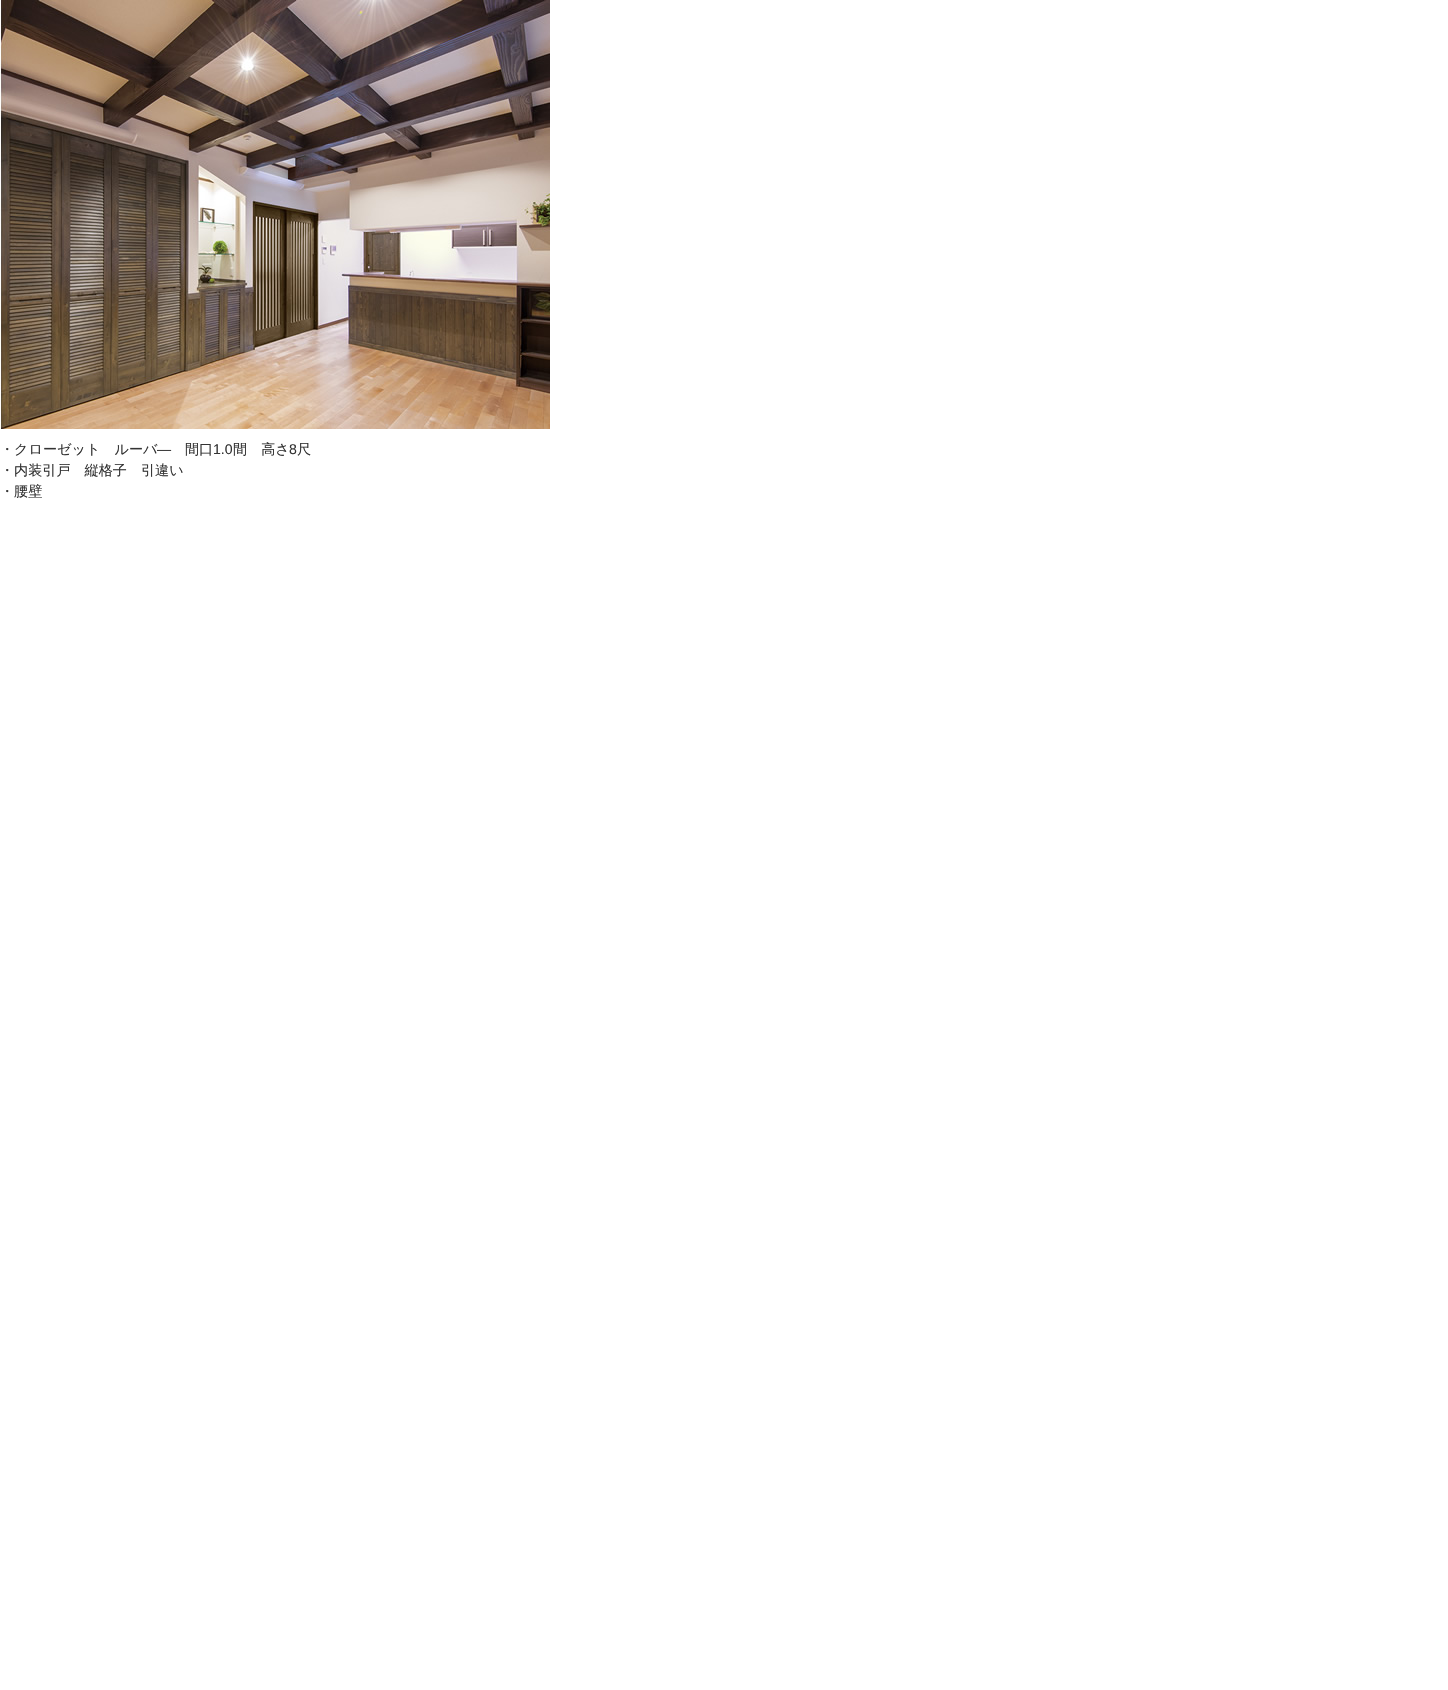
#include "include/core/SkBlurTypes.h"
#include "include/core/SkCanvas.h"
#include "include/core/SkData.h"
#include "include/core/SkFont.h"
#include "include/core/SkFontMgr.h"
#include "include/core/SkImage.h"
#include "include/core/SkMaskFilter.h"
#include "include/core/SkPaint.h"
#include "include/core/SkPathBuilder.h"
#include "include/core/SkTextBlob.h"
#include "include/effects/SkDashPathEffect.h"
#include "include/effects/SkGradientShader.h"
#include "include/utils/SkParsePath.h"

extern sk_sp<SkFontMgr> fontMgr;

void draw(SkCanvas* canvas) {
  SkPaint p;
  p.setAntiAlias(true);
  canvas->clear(SK_ColorWHITE);
  canvas->drawImageRect(SkImages::DeferredFromEncodedData(SkData::MakeFromFileName("images/1.png")), SkRect::MakeLTRB(0, 0, 550, 429), SkSamplingOptions());
  SkFont font1(fontMgr->matchFamilyStyle("WenQuanYi Zen Hei", SkFontStyle(500, SkFontStyle::kNormal_Width, SkFontStyle::kUpright_Slant)), 14.1f);
  font1.setSubpixel(true);
  p.setColor(SkColorSetRGB(51, 51, 51));
  canvas->drawString("・クローゼット　ルーバ", 0, 454, font1, p);
  SkFont font2(fontMgr->matchFamilyStyle("Liberation Sans", SkFontStyle::Normal()), 14.1f);
  font2.setSubpixel(true);
  canvas->drawString("―", 157, 454, font2, p);
  canvas->drawString("間口", 185, 454, font1, p);
  canvas->drawString("1.0", 213, 454, font2, p);
  canvas->drawString("間　高さ", 233, 454, font1, p);
  canvas->drawString("8", 289, 454, font2, p);
  canvas->drawString("尺", 297, 454, font1, p);
  canvas->drawString("・内装引戸　縦格子　引違い", 0, 475, font1, p);
  canvas->drawString("・腰壁", 0, 496, font1, p);
}
